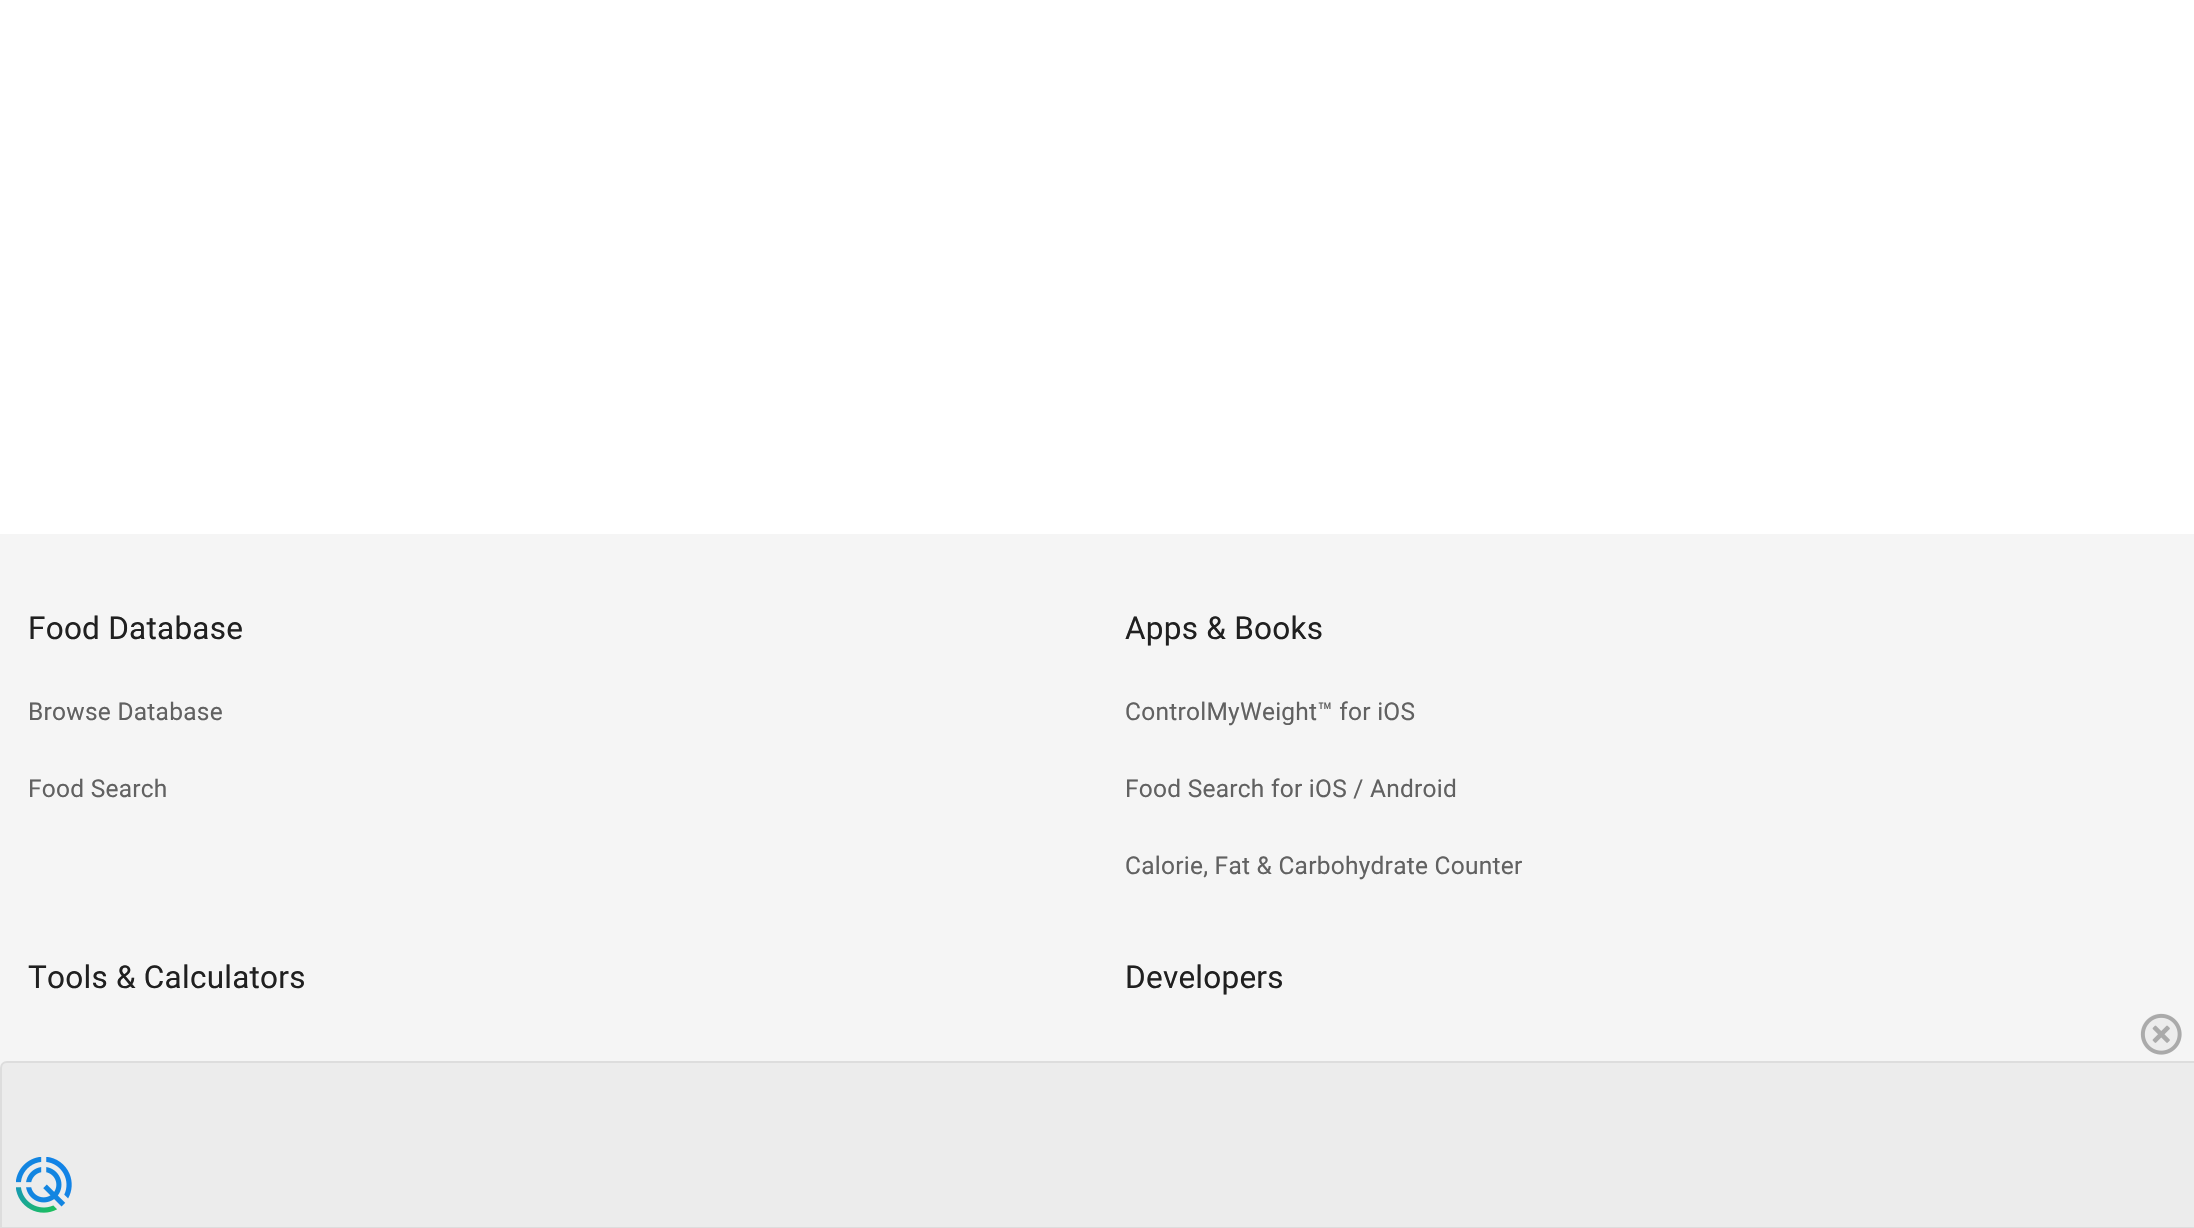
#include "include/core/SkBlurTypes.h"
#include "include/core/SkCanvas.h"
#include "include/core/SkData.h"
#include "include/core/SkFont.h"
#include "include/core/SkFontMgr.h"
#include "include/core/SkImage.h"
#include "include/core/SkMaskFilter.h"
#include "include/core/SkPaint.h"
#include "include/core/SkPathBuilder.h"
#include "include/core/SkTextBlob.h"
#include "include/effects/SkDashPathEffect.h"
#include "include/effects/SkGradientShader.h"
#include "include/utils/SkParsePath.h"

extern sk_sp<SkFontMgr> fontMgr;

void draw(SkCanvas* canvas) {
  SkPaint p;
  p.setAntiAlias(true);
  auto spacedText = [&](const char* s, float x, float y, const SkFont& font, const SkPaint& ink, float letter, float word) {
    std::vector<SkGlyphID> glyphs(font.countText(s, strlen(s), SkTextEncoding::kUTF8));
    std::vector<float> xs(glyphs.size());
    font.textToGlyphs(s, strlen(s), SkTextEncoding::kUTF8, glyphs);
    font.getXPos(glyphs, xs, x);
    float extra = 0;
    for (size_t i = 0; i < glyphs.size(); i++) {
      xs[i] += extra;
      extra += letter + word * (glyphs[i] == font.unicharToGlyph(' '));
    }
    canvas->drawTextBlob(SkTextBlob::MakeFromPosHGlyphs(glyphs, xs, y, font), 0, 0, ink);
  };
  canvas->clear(SK_ColorWHITE);
  p.setColor(SkColorSetRGB(245, 245, 245));
  canvas->drawRect(SkRect::MakeLTRB(0, 534, 2194, 1227), p);
  p.setColor(SkColorSetARGB(227, 235, 235, 235));
  canvas->drawPath(SkPathBuilder().moveTo(7, 1062).lineTo(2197, 1062).lineTo(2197, 1228).lineTo(1, 1228).lineTo(1, 1068).cubicTo(1, 1064.5f, 3.5f, 1062, 7, 1062).close().detach(), p);
  p.setStyle(SkPaint::kStroke_Style);
  p.setStrokeWidth(2);
  p.setColor(SkColorSetRGB(221, 221, 221));
  canvas->drawPath(SkPathBuilder().moveTo(7, 1062).lineTo(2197, 1062).lineTo(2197, 1228).lineTo(1, 1228).lineTo(1, 1068).cubicTo(1, 1064.5f, 3.5f, 1062, 7, 1062).close().detach(), p);
  canvas->drawImageRect(SkImages::DeferredFromEncodedData(SkData::MakeFromFileName("images/1.png")), SkRect::MakeLTRB(2140, 1013, 2182, 1055), SkSamplingOptions());
  canvas->drawImageRect(SkImages::DeferredFromEncodedData(SkData::MakeFromFileName("images/2.png")), SkRect::MakeLTRB(16, 1157, 72, 1213), SkSamplingOptions());
  SkFont font1(fontMgr->matchFamilyStyle("Roboto", SkFontStyle::Normal()), 31.5f);
  font1.setSubpixel(true);
  p.setStyle(SkPaint::kFill_Style);
  p.setColor(SkColorSetRGB(32, 32, 32));
  spacedText("Food Database", 28, 639, font1, p, 0.25f, 0);
  SkFont font2(fontMgr->matchFamilyStyle("Roboto", SkFontStyle::Normal()), 24.5f);
  font2.setSubpixel(true);
  p.setColor(SkColorSetRGB(97, 97, 97));
  spacedText("Browse Database", 28, 720, font2, p, 0.25f, 0);
  spacedText("Food Search", 28, 797, font2, p, 0.25f, 0);
  p.setColor(SkColorSetRGB(32, 32, 32));
  spacedText("Apps & Books", 1125, 639, font1, p, 0.25f, 0);
  p.setColor(SkColorSetRGB(97, 97, 97));
  spacedText("ControlMyWeight™ for iOS", 1125, 720, font2, p, 0.25f, 0);
  spacedText("Food Search for iOS / Android", 1125, 797, font2, p, 0.25f, 0);
  spacedText("Calorie, Fat & Carbohydrate Counter", 1125, 874, font2, p, 0.25f, 0);
  p.setColor(SkColorSetRGB(32, 32, 32));
  spacedText("Tools & Calculators", 28, 988, font1, p, 0.25f, 0);
  spacedText("Developers", 1125, 988, font1, p, 0.25f, 0);
}
